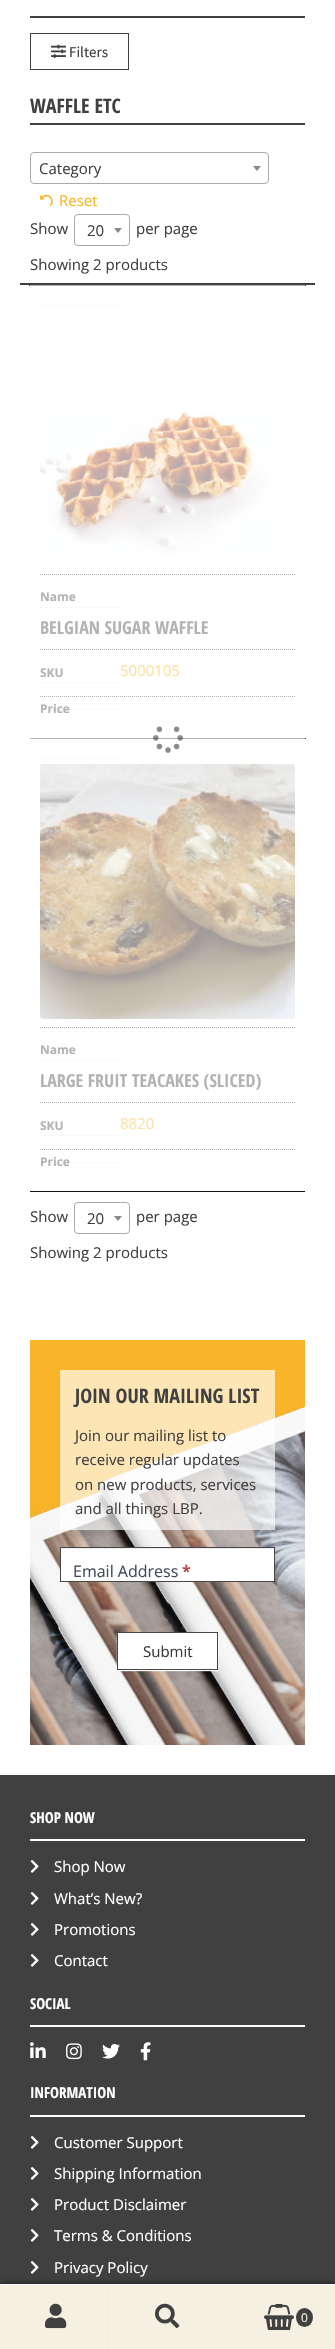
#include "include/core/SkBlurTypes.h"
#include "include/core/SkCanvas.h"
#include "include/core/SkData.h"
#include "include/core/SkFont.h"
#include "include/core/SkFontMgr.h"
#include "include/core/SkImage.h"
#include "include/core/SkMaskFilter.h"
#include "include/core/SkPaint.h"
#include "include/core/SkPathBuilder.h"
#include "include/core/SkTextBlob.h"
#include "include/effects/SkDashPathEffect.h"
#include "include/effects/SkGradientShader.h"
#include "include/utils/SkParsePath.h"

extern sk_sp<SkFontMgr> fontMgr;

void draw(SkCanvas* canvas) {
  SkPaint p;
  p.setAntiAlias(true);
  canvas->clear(SK_ColorWHITE);
  p.setColor(SkColorSetRGB(64, 64, 64));
  canvas->drawRect(SkRect::MakeLTRB(30, 16, 305, 18), p);
  p.setStyle(SkPaint::kStroke_Style);
  p.setStrokeWidth(1);
  canvas->drawRect(SkRect::MakeLTRB(30.5f, 33.5f, 128.5f, 69.5f), p);
  canvas->drawImageRect(SkImages::DeferredFromEncodedData(SkData::MakeFromFileName("images/1.png")), SkRect::MakeLTRB(51, 44, 66, 58), SkSamplingOptions());
  p.setStyle(SkPaint::kFill_Style);
  canvas->drawRect(SkRect::MakeLTRB(30, 123, 305, 125), p);
  canvas->drawRect(SkRect::MakeLTRB(20, 283, 315, 285), p);
  p.setStyle(SkPaint::kStroke_Style);
  p.setColor(SkColorSetRGB(170, 170, 170));
  canvas->drawRoundRect(SkRect::MakeLTRB(30.5f, 152.5f, 268.5f, 183.5f), 3.5f, 3.5f, p);
  p.setStyle(SkPaint::kFill_Style);
  p.setColor(SkColorSetRGB(136, 136, 136));
  canvas->drawPath(SkPathBuilder().moveTo(253, 166).lineTo(261, 166).lineTo(257, 171).close().detach(), p);
  canvas->drawImageRect(SkImages::DeferredFromEncodedData(SkData::MakeFromFileName("images/2.png")), SkRect::MakeLTRB(40, 194, 53, 206), SkSamplingOptions());
  p.setStyle(SkPaint::kStroke_Style);
  p.setColor(SkColorSetRGB(170, 170, 170));
  canvas->drawRoundRect(SkRect::MakeLTRB(74.5f, 214.5f, 129.5f, 245.5f), 3.5f, 3.5f, p);
  p.setStyle(SkPaint::kFill_Style);
  p.setColor(SkColorSetRGB(136, 136, 136));
  canvas->drawPath(SkPathBuilder().moveTo(114, 228).lineTo(122, 228).lineTo(118, 233).close().detach(), p);
  p.setColor(SkColorSetRGB(17, 17, 17));
  canvas->drawRect(SkRect::MakeLTRB(30, 1191, 305, 1192), p);
  p.setColor(SkColorSetRGB(64, 64, 64));
  canvas->drawRect(SkRect::MakeLTRB(29, 285, 306, 286), p);
  p.setColor(SkColorSetRGB(179, 179, 179));
  canvas->drawRect(SkRect::MakeLTRB(30, 285, 305, 286), p);
  p.setStyle(SkPaint::kStroke_Style);
  p.setPathEffect(SkDashPathEffect::Make({{1, 1}}, 0));
  canvas->drawPath(SkPathBuilder().moveTo(40, 574.5f).lineTo(295, 574.5f).detach(), p);
  p.setPathEffect(nullptr);
  p.setStyle(SkPaint::kFill_Style);
  p.setColor(SkColorSetRGB(249, 249, 249));
  canvas->drawRect(SkRect::MakeLTRB(40, 305, 120, 306), p);
  canvas->drawImageRect(SkImages::DeferredFromEncodedData(SkData::MakeFromFileName("images/3.png")), SkRect::MakeLTRB(40, 411, 270, 555), SkSamplingOptions());
  p.setStyle(SkPaint::kStroke_Style);
  p.setColor(SkColorSetRGB(179, 179, 179));
  p.setPathEffect(SkDashPathEffect::Make({{1, 1}}, 0));
  canvas->drawPath(SkPathBuilder().moveTo(40, 649.5f).lineTo(295, 649.5f).detach(), p);
  p.setPathEffect(nullptr);
  p.setStyle(SkPaint::kFill_Style);
  p.setColor(SkColorSetRGB(249, 249, 249));
  canvas->drawRect(SkRect::MakeLTRB(40, 607, 120, 608), p);
  p.setStyle(SkPaint::kStroke_Style);
  p.setColor(SkColorSetRGB(179, 179, 179));
  p.setPathEffect(SkDashPathEffect::Make({{1, 1}}, 0));
  canvas->drawPath(SkPathBuilder().moveTo(40, 696.5f).lineTo(295, 696.5f).detach(), p);
  p.setPathEffect(nullptr);
  p.setStyle(SkPaint::kFill_Style);
  p.setColor(SkColorSetRGB(249, 249, 249));
  canvas->drawRect(SkRect::MakeLTRB(40, 682, 120, 683), p);
  canvas->drawRect(SkRect::MakeLTRB(40, 709, 120, 710), p);
  p.setColor(SkColorSetRGB(64, 64, 64));
  canvas->drawRect(SkRect::MakeLTRB(305, 738, 306, 739), p);
  p.setColor(SkColorSetRGB(179, 179, 179));
  canvas->drawRect(SkRect::MakeLTRB(30, 738, 305, 739), p);
  p.setStyle(SkPaint::kStroke_Style);
  p.setPathEffect(SkDashPathEffect::Make({{1, 1}}, 0));
  canvas->drawPath(SkPathBuilder().moveTo(40, 1027.5f).lineTo(295, 1027.5f).detach(), p);
  p.setPathEffect(nullptr);
  p.setStyle(SkPaint::kFill_Style);
  p.setColor(SkColorSetRGB(249, 249, 249));
  canvas->drawRect(SkRect::MakeLTRB(40, 758, 120, 759), p);
  canvas->drawImageRect(SkImages::DeferredFromEncodedData(SkData::MakeFromFileName("images/4.png")), SkRect::MakeLTRB(40, 764, 295, 1019), SkSamplingOptions());
  p.setStyle(SkPaint::kStroke_Style);
  p.setColor(SkColorSetRGB(179, 179, 179));
  p.setPathEffect(SkDashPathEffect::Make({{1, 1}}, 0));
  canvas->drawPath(SkPathBuilder().moveTo(40, 1102.5f).lineTo(295, 1102.5f).detach(), p);
  p.setPathEffect(nullptr);
  p.setStyle(SkPaint::kFill_Style);
  p.setColor(SkColorSetRGB(249, 249, 249));
  canvas->drawRect(SkRect::MakeLTRB(40, 1060, 120, 1061), p);
  p.setStyle(SkPaint::kStroke_Style);
  p.setColor(SkColorSetRGB(179, 179, 179));
  p.setPathEffect(SkDashPathEffect::Make({{1, 1}}, 0));
  canvas->drawPath(SkPathBuilder().moveTo(40, 1149.5f).lineTo(295, 1149.5f).detach(), p);
  p.setPathEffect(nullptr);
  p.setStyle(SkPaint::kFill_Style);
  p.setColor(SkColorSetRGB(249, 249, 249));
  canvas->drawRect(SkRect::MakeLTRB(40, 1135, 120, 1136), p);
  canvas->drawRect(SkRect::MakeLTRB(40, 1162, 120, 1163), p);
  canvas->drawImageRect(SkImages::DeferredFromEncodedData(SkData::MakeFromFileName("images/5.png")), SkRect::MakeLTRB(153, 726, 183, 753), SkSamplingOptions());
  p.setStyle(SkPaint::kStroke_Style);
  p.setColor(SkColorSetRGB(170, 170, 170));
  canvas->drawRoundRect(SkRect::MakeLTRB(74.5f, 1202.5f, 129.5f, 1233.5f), 3.5f, 3.5f, p);
  p.setStyle(SkPaint::kFill_Style);
  p.setColor(SkColorSetRGB(136, 136, 136));
  canvas->drawPath(SkPathBuilder().moveTo(114, 1216).lineTo(122, 1216).lineTo(118, 1221).close().detach(), p);
  canvas->drawImageRect(SkImages::DeferredFromEncodedData(SkData::MakeFromFileName("images/6.png")), SkRect::MakeLTRB(30, 1340, 305, 1745), SkSamplingOptions());
  p.setColor(SkColorSetARGB(166, 255, 255, 255));
  canvas->drawRect(SkRect::MakeLTRB(60, 1370, 275, 1530), p);
  p.setColor(SK_ColorWHITE);
  canvas->drawRect(SkRect::MakeLTRB(61, 1549, 274, 1581), p);
  p.setColor(SkColorSetRGB(236, 236, 236));
  canvas->drawRect(SkRect::MakeLTRB(61, 1548, 274, 1549), p);
  p.setStyle(SkPaint::kStroke_Style);
  p.setColor(SkColorSetRGB(71, 69, 69));
  canvas->drawRect(SkRect::MakeLTRB(60.5f, 1547.5f, 274.5f, 1581.5f), p);
  p.setStyle(SkPaint::kFill_Style);
  p.setColor(SK_ColorWHITE);
  p.setMaskFilter(SkMaskFilter::MakeBlur(kNormal_SkBlurStyle, 0.5f));
  canvas->drawRect(SkRect::MakeLTRB(117, 1633, 218, 1671), p);
  p.setMaskFilter(nullptr);
  canvas->drawRect(SkRect::MakeLTRB(118, 1633, 199, 1634), p);
  p.setStyle(SkPaint::kStroke_Style);
  p.setColor(SkColorSetRGB(71, 71, 71));
  canvas->drawRect(SkRect::MakeLTRB(117.5f, 1632.5f, 217.5f, 1669.5f), p);
  p.setStyle(SkPaint::kFill_Style);
  p.setColor(SkColorSetRGB(64, 64, 64));
  canvas->drawRect(SkRect::MakeLTRB(0, 1775, 335, 2284), p);
  p.setColor(SK_ColorWHITE);
  canvas->drawRect(SkRect::MakeLTRB(30, 1839, 305, 1841), p);
  canvas->drawImageRect(SkImages::DeferredFromEncodedData(SkData::MakeFromFileName("images/7.png")), SkRect::MakeLTRB(30, 1860, 39, 1873), SkSamplingOptions());
  canvas->drawImageRect(SkImages::DeferredFromEncodedData(SkData::MakeFromFileName("images/7.png")), SkRect::MakeLTRB(30, 1892, 39, 1905), SkSamplingOptions());
  canvas->drawImageRect(SkImages::DeferredFromEncodedData(SkData::MakeFromFileName("images/7.png")), SkRect::MakeLTRB(30, 1923, 39, 1936), SkSamplingOptions());
  canvas->drawImageRect(SkImages::DeferredFromEncodedData(SkData::MakeFromFileName("images/7.png")), SkRect::MakeLTRB(30, 1954, 39, 1967), SkSamplingOptions());
  canvas->drawRect(SkRect::MakeLTRB(30, 2025, 305, 2027), p);
  canvas->drawImageRect(SkImages::DeferredFromEncodedData(SkData::MakeFromFileName("images/8.png")), SkRect::MakeLTRB(30, 2042, 46, 2058), SkSamplingOptions());
  canvas->drawImageRect(SkImages::DeferredFromEncodedData(SkData::MakeFromFileName("images/9.png")), SkRect::MakeLTRB(66, 2043, 82, 2060), SkSamplingOptions());
  canvas->drawImageRect(SkImages::DeferredFromEncodedData(SkData::MakeFromFileName("images/10.png")), SkRect::MakeLTRB(102, 2043, 120, 2059), SkSamplingOptions());
  canvas->drawImageRect(SkImages::DeferredFromEncodedData(SkData::MakeFromFileName("images/11.png")), SkRect::MakeLTRB(140, 2042, 151, 2061), SkSamplingOptions());
  canvas->drawRect(SkRect::MakeLTRB(30, 2115, 305, 2117), p);
  canvas->drawImageRect(SkImages::DeferredFromEncodedData(SkData::MakeFromFileName("images/7.png")), SkRect::MakeLTRB(30, 2136, 39, 2149), SkSamplingOptions());
  canvas->drawImageRect(SkImages::DeferredFromEncodedData(SkData::MakeFromFileName("images/7.png")), SkRect::MakeLTRB(30, 2167, 39, 2180), SkSamplingOptions());
  canvas->drawImageRect(SkImages::DeferredFromEncodedData(SkData::MakeFromFileName("images/7.png")), SkRect::MakeLTRB(30, 2198, 39, 2211), SkSamplingOptions());
  canvas->drawImageRect(SkImages::DeferredFromEncodedData(SkData::MakeFromFileName("images/7.png")), SkRect::MakeLTRB(30, 2229, 39, 2242), SkSamplingOptions());
  canvas->drawImageRect(SkImages::DeferredFromEncodedData(SkData::MakeFromFileName("images/7.png")), SkRect::MakeLTRB(30, 2261, 39, 2274), SkSamplingOptions());
  p.setColor(SkColorSetARGB(179, 0, 0, 0));
  p.setMaskFilter(SkMaskFilter::MakeBlur(kNormal_SkBlurStyle, 3));
  canvas->drawRect(SkRect::MakeLTRB(0, 2284, 335, 2349), p);
  p.setMaskFilter(nullptr);
  p.setColor(SK_ColorWHITE);
  canvas->drawRect(SkRect::MakeLTRB(0, 2284, 335, 2285), p);
  p.setColor(SkColorSetRGB(245, 240, 225));
  canvas->drawRect(SkRect::MakeLTRB(0, 2285, 111, 2349), p);
  p.setColor(SkColorSetRGB(247, 243, 231));
  canvas->drawRect(SkRect::MakeLTRB(111, 2285, 112, 2349), p);
  canvas->drawImageRect(SkImages::DeferredFromEncodedData(SkData::MakeFromFileName("images/12.png")), SkRect::MakeLTRB(45, 2303, 67, 2329), SkSamplingOptions());
  p.setColor(SkColorSetRGB(245, 240, 225));
  canvas->drawRect(SkRect::MakeLTRB(112, 2285, 222, 2349), p);
  p.setColor(SkColorSetRGB(247, 243, 231));
  canvas->drawRect(SkRect::MakeLTRB(222, 2285, 223, 2349), p);
  canvas->drawImageRect(SkImages::DeferredFromEncodedData(SkData::MakeFromFileName("images/13.png")), SkRect::MakeLTRB(155, 2303, 180, 2328), SkSamplingOptions());
  p.setColor(SkColorSetRGB(245, 240, 225));
  canvas->drawRect(SkRect::MakeLTRB(223, 2285, 335, 2349), p);
  canvas->drawImageRect(SkImages::DeferredFromEncodedData(SkData::MakeFromFileName("images/14.png")), SkRect::MakeLTRB(264, 2304, 294, 2330), SkSamplingOptions());
  p.setColor(SkColorSetRGB(64, 64, 64));
  canvas->drawOval(SkRect::MakeLTRB(296, 2308, 313, 2327), p);
  SkFont font1(fontMgr->matchFamilyStyle("Source Sans Pro", SkFontStyle::Normal()), 15);
  font1.setSubpixel(true);
  canvas->drawString("Filters", 69, 57, font1, p);
  SkFont font2(fontMgr->matchFamilyStyle("Open Sans Condensed", SkFontStyle::Bold()), 20);
  font2.setSubpixel(true);
  canvas->drawString("WAFFLE ETC", 30, 113, font2, p);
  SkFont font3(fontMgr->matchFamilyStyle("Open Sans", SkFontStyle::Normal()), 15);
  font3.setSubpixel(true);
  canvas->drawString("Category", 39, 174, font3, p);
  p.setColor(SkColorSetRGB(249, 180, 42));
  canvas->drawString("Reset", 59, 206, font3, p);
  p.setColor(SkColorSetRGB(64, 64, 64));
  canvas->drawString("Show", 30, 234, font3, p);
  canvas->drawString("20", 87, 236, font3, p);
  canvas->drawString("per page", 136, 234, font3, p);
  canvas->drawString("Showing 2 products", 30, 270, font3, p);
  SkFont font4(fontMgr->matchFamilyStyle("Open Sans", SkFontStyle::Bold()), 12);
  font4.setSubpixel(true);
  p.setColor(SkColorSetRGB(179, 179, 179));
  canvas->drawString("Name", 40, 601, font4, p);
  SkFont font5(fontMgr->matchFamilyStyle("Open Sans Condensed", SkFontStyle::Bold()), 18);
  font5.setSubpixel(true);
  canvas->drawString("BELGIAN SUGAR WAFFLE", 40, 634, font5, p);
  canvas->drawString("SKU", 40, 677, font4, p);
  p.setColor(SkColorSetRGB(253, 225, 170));
  canvas->drawString("5000105", 120, 676, font3, p);
  p.setColor(SkColorSetRGB(179, 179, 179));
  canvas->drawString("Price", 40, 713, font4, p);
  canvas->drawString("Name", 40, 1054, font4, p);
  canvas->drawString("LARGE FRUIT TEACAKES (SLICED)", 40, 1087, font5, p);
  canvas->drawString("SKU", 40, 1130, font4, p);
  p.setColor(SkColorSetRGB(253, 225, 170));
  canvas->drawString("8820", 120, 1129, font3, p);
  p.setColor(SkColorSetRGB(179, 179, 179));
  canvas->drawString("Price", 40, 1166, font4, p);
  p.setColor(SkColorSetRGB(64, 64, 64));
  canvas->drawString("Show", 30, 1222, font3, p);
  canvas->drawString("20", 87, 1224, font3, p);
  canvas->drawString("per page", 136, 1222, font3, p);
  canvas->drawString("Showing 2 products", 30, 1258, font3, p);
  canvas->drawString("JOIN OUR MAILING LIST", 75, 1403, font2, p);
  canvas->drawString("Join our mailing list to", 75, 1441, font3, p);
  canvas->drawString("receive regular updates", 75, 1465, font3, p);
  canvas->drawString("on new products, services", 75, 1490, font3, p);
  canvas->drawString("and all things LBP.", 75, 1514, font3, p);
  SkFont font6(fontMgr->matchFamilyStyle("Open Sans", SkFontStyle::Normal()), 16);
  font6.setSubpixel(true);
  p.setColor(SkColorSetRGB(63, 75, 91));
  canvas->drawString("Email Address", 73, 1577, font6, p);
  SkFont font7(fontMgr->matchFamilyStyle("Open Sans", SkFontStyle::Bold()), 16);
  font7.setSubpixel(true);
  p.setColor(SkColorSetRGB(185, 74, 72));
  canvas->drawString("*", 182, 1577, font7, p);
  p.setColor(SkColorSetRGB(58, 58, 58));
  canvas->drawString("Submit", 143, 1657, font3, p);
  SkFont font8(fontMgr->matchFamilyStyle("Open Sans Condensed", SkFontStyle::Bold()), 15);
  font8.setSubpixel(true);
  p.setColor(SK_ColorWHITE);
  canvas->drawString("SHOP NOW", 30, 1823, font8, p);
  canvas->drawString("Shop Now", 54, 1872, font3, p);
  canvas->drawString("What’s New?", 54, 1904, font3, p);
  canvas->drawString("Promotions", 54, 1935, font3, p);
  canvas->drawString("Contact", 54, 1966, font3, p);
  canvas->drawString("SOCIAL", 30, 2009, font8, p);
  canvas->drawString("INFORMATION", 30, 2098, font8, p);
  canvas->drawString("Customer Support", 54, 2148, font3, p);
  canvas->drawString("Shipping Information", 54, 2179, font3, p);
  canvas->drawString("Product Disclaimer", 54, 2210, font3, p);
  canvas->drawString("Terms & Conditions", 54, 2241, font3, p);
  canvas->drawString("Privacy Policy", 54, 2273, font3, p);
  SkFont font9(fontMgr->matchFamilyStyle("Open Sans", SkFontStyle::Normal()), 12);
  font9.setSubpixel(true);
  p.setColor(SkColorSetRGB(245, 240, 225));
  canvas->drawString("0", 301, 2322, font9, p);
}
